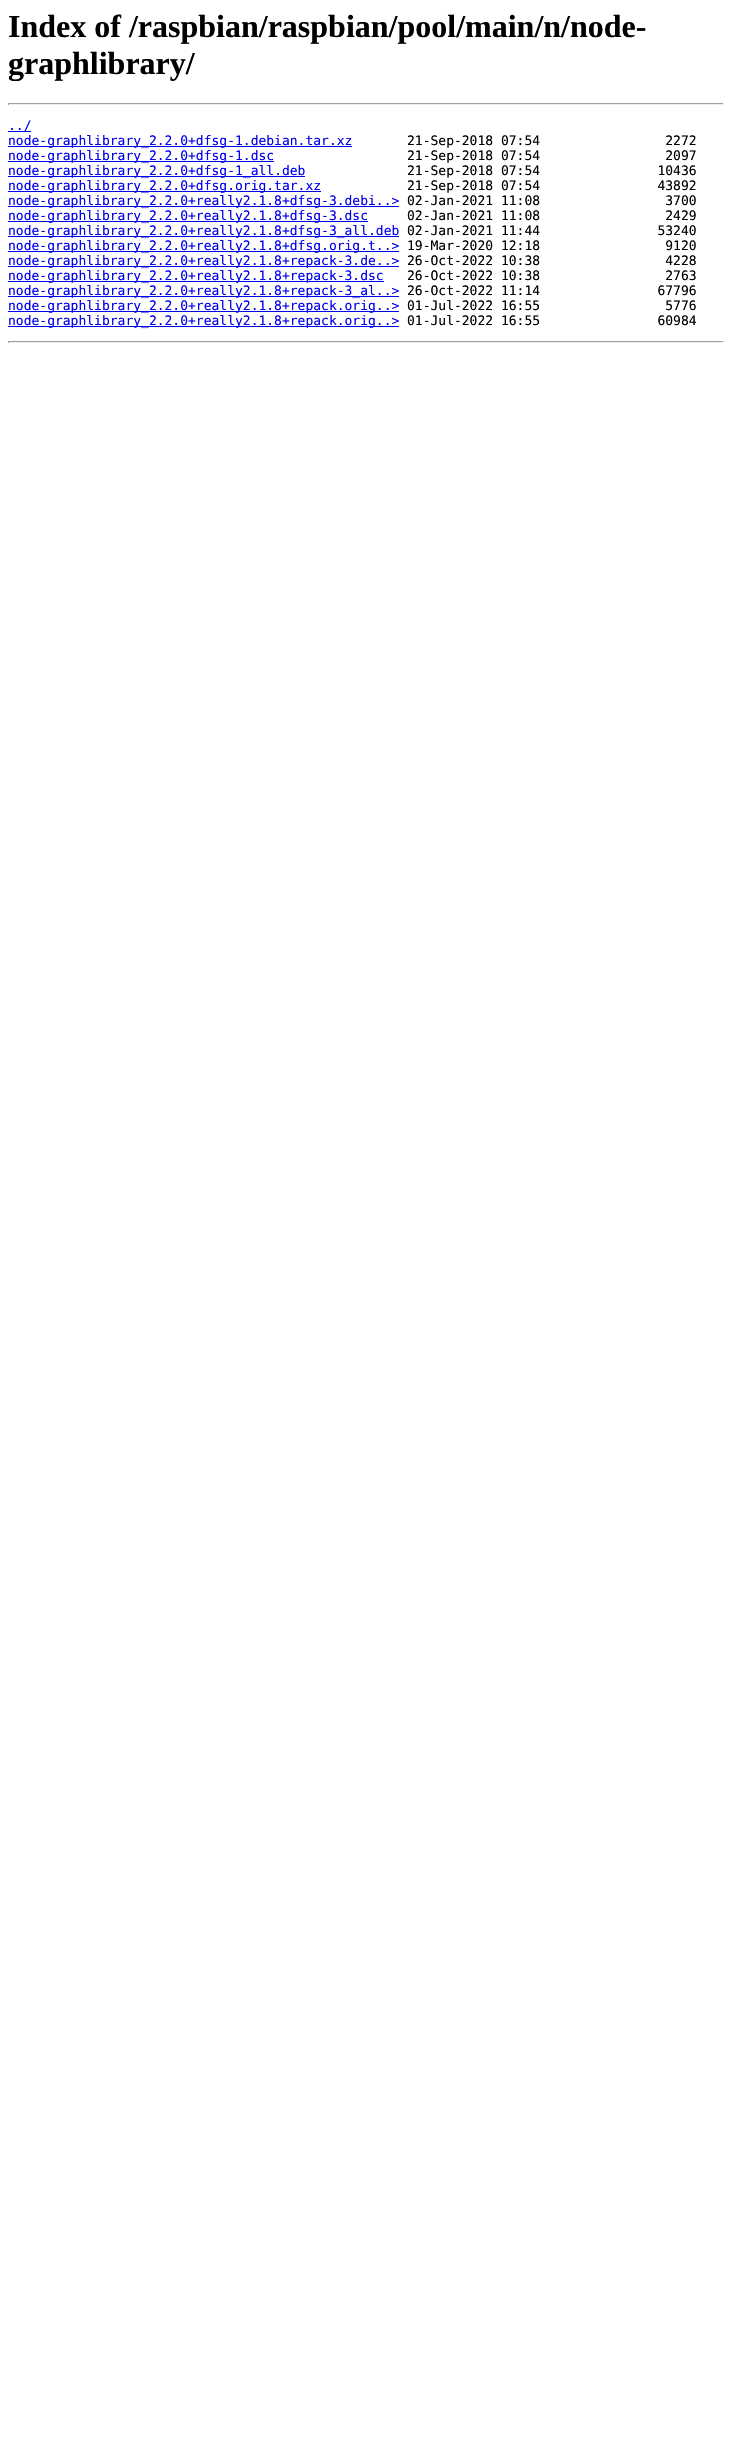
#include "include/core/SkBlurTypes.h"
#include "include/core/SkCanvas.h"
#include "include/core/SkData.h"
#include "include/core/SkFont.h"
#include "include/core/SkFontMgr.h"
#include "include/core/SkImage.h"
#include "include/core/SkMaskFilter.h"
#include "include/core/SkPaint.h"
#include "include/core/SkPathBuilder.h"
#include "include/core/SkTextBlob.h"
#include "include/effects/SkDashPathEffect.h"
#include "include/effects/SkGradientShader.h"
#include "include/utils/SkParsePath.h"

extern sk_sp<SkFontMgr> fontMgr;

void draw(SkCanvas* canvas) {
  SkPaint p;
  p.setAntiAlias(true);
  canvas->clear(SK_ColorWHITE);
  p.setColor(SkColorSetRGB(159, 159, 159));
  canvas->drawRect(SkRect::MakeLTRB(8, 103, 724, 104), p);
  p.setColor(SkColorSetRGB(238, 238, 238));
  canvas->drawRect(SkRect::MakeLTRB(723, 103, 724, 105), p);
  canvas->drawRect(SkRect::MakeLTRB(8, 104, 724, 105), p);
  p.setColor(SkColorSetRGB(159, 159, 159));
  canvas->drawRect(SkRect::MakeLTRB(8, 103, 9, 105), p);
  p.setColor(SkColorSetRGB(0, 0, 238));
  canvas->drawRect(SkRect::MakeLTRB(8, 131, 31, 132), p);
  canvas->drawRect(SkRect::MakeLTRB(8, 146, 352, 147), p);
  canvas->drawRect(SkRect::MakeLTRB(8, 161, 274, 162), p);
  canvas->drawRect(SkRect::MakeLTRB(8, 176, 305, 177), p);
  canvas->drawRect(SkRect::MakeLTRB(8, 191, 321, 192), p);
  canvas->drawRect(SkRect::MakeLTRB(8, 206, 399, 207), p);
  canvas->drawRect(SkRect::MakeLTRB(8, 221, 368, 222), p);
  canvas->drawRect(SkRect::MakeLTRB(8, 236, 399, 237), p);
  canvas->drawRect(SkRect::MakeLTRB(8, 251, 399, 252), p);
  canvas->drawRect(SkRect::MakeLTRB(8, 266, 399, 267), p);
  canvas->drawRect(SkRect::MakeLTRB(8, 281, 384, 282), p);
  canvas->drawRect(SkRect::MakeLTRB(8, 296, 399, 297), p);
  canvas->drawRect(SkRect::MakeLTRB(8, 311, 399, 312), p);
  canvas->drawRect(SkRect::MakeLTRB(8, 326, 399, 327), p);
  p.setColor(SkColorSetRGB(159, 159, 159));
  canvas->drawRect(SkRect::MakeLTRB(8, 341, 724, 342), p);
  p.setColor(SkColorSetRGB(238, 238, 238));
  canvas->drawRect(SkRect::MakeLTRB(723, 341, 724, 343), p);
  canvas->drawRect(SkRect::MakeLTRB(8, 342, 724, 343), p);
  p.setColor(SkColorSetRGB(159, 159, 159));
  canvas->drawRect(SkRect::MakeLTRB(8, 341, 9, 343), p);
  SkFont font1(fontMgr->matchFamilyStyle("Liberation Serif", SkFontStyle::Bold()), 32);
  font1.setSubpixel(true);
  p.setColor(SK_ColorBLACK);
  canvas->drawString("Index of /raspbian/raspbian/pool/main/n/node-", 8, 37, font1, p);
  canvas->drawString("graphlibrary/", 8, 74, font1, p);
  SkFont font2(fontMgr->matchFamilyStyle("DejaVu Sans Mono", SkFontStyle::Normal()), 13);
  font2.setSubpixel(true);
  p.setColor(SkColorSetRGB(0, 0, 238));
  canvas->drawString("../", 8, 130, font2, p);
  canvas->drawString("node-graphlibrary_2.2.0+dfsg-1.debian.tar.xz", 8, 145, font2, p);
  p.setColor(SK_ColorBLACK);
  canvas->drawString("21-Sep-2018 07:54                2272", 407, 145, font2, p);
  p.setColor(SkColorSetRGB(0, 0, 238));
  canvas->drawString("node-graphlibrary_2.2.0+dfsg-1.dsc", 8, 160, font2, p);
  p.setColor(SK_ColorBLACK);
  canvas->drawString("21-Sep-2018 07:54                2097", 407, 160, font2, p);
  p.setColor(SkColorSetRGB(0, 0, 238));
  canvas->drawString("node-graphlibrary_2.2.0+dfsg-1_all.deb", 8, 175, font2, p);
  p.setColor(SK_ColorBLACK);
  canvas->drawString("21-Sep-2018 07:54               10436", 407, 175, font2, p);
  p.setColor(SkColorSetRGB(0, 0, 238));
  canvas->drawString("node-graphlibrary_2.2.0+dfsg.orig.tar.xz", 8, 190, font2, p);
  p.setColor(SK_ColorBLACK);
  canvas->drawString("21-Sep-2018 07:54               43892", 407, 190, font2, p);
  p.setColor(SkColorSetRGB(0, 0, 238));
  canvas->drawString("node-graphlibrary_2.2.0+really2.1.8+dfsg-3.debi..>", 8, 205, font2, p);
  p.setColor(SK_ColorBLACK);
  canvas->drawString("02-Jan-2021 11:08                3700", 407, 205, font2, p);
  p.setColor(SkColorSetRGB(0, 0, 238));
  canvas->drawString("node-graphlibrary_2.2.0+really2.1.8+dfsg-3.dsc", 8, 220, font2, p);
  p.setColor(SK_ColorBLACK);
  canvas->drawString("02-Jan-2021 11:08                2429", 407, 220, font2, p);
  p.setColor(SkColorSetRGB(0, 0, 238));
  canvas->drawString("node-graphlibrary_2.2.0+really2.1.8+dfsg-3_all.deb", 8, 235, font2, p);
  p.setColor(SK_ColorBLACK);
  canvas->drawString("02-Jan-2021 11:44               53240", 407, 235, font2, p);
  p.setColor(SkColorSetRGB(0, 0, 238));
  canvas->drawString("node-graphlibrary_2.2.0+really2.1.8+dfsg.orig.t..>", 8, 250, font2, p);
  p.setColor(SK_ColorBLACK);
  canvas->drawString("19-Mar-2020 12:18                9120", 407, 250, font2, p);
  p.setColor(SkColorSetRGB(0, 0, 238));
  canvas->drawString("node-graphlibrary_2.2.0+really2.1.8+repack-3.de..>", 8, 265, font2, p);
  p.setColor(SK_ColorBLACK);
  canvas->drawString("26-Oct-2022 10:38                4228", 407, 265, font2, p);
  p.setColor(SkColorSetRGB(0, 0, 238));
  canvas->drawString("node-graphlibrary_2.2.0+really2.1.8+repack-3.dsc", 8, 280, font2, p);
  p.setColor(SK_ColorBLACK);
  canvas->drawString("26-Oct-2022 10:38                2763", 407, 280, font2, p);
  p.setColor(SkColorSetRGB(0, 0, 238));
  canvas->drawString("node-graphlibrary_2.2.0+really2.1.8+repack-3_al..>", 8, 295, font2, p);
  p.setColor(SK_ColorBLACK);
  canvas->drawString("26-Oct-2022 11:14               67796", 407, 295, font2, p);
  p.setColor(SkColorSetRGB(0, 0, 238));
  canvas->drawString("node-graphlibrary_2.2.0+really2.1.8+repack.orig..>", 8, 310, font2, p);
  p.setColor(SK_ColorBLACK);
  canvas->drawString("01-Jul-2022 16:55                5776", 407, 310, font2, p);
  p.setColor(SkColorSetRGB(0, 0, 238));
  canvas->drawString("node-graphlibrary_2.2.0+really2.1.8+repack.orig..>", 8, 325, font2, p);
  p.setColor(SK_ColorBLACK);
  canvas->drawString("01-Jul-2022 16:55               60984", 407, 325, font2, p);
}
